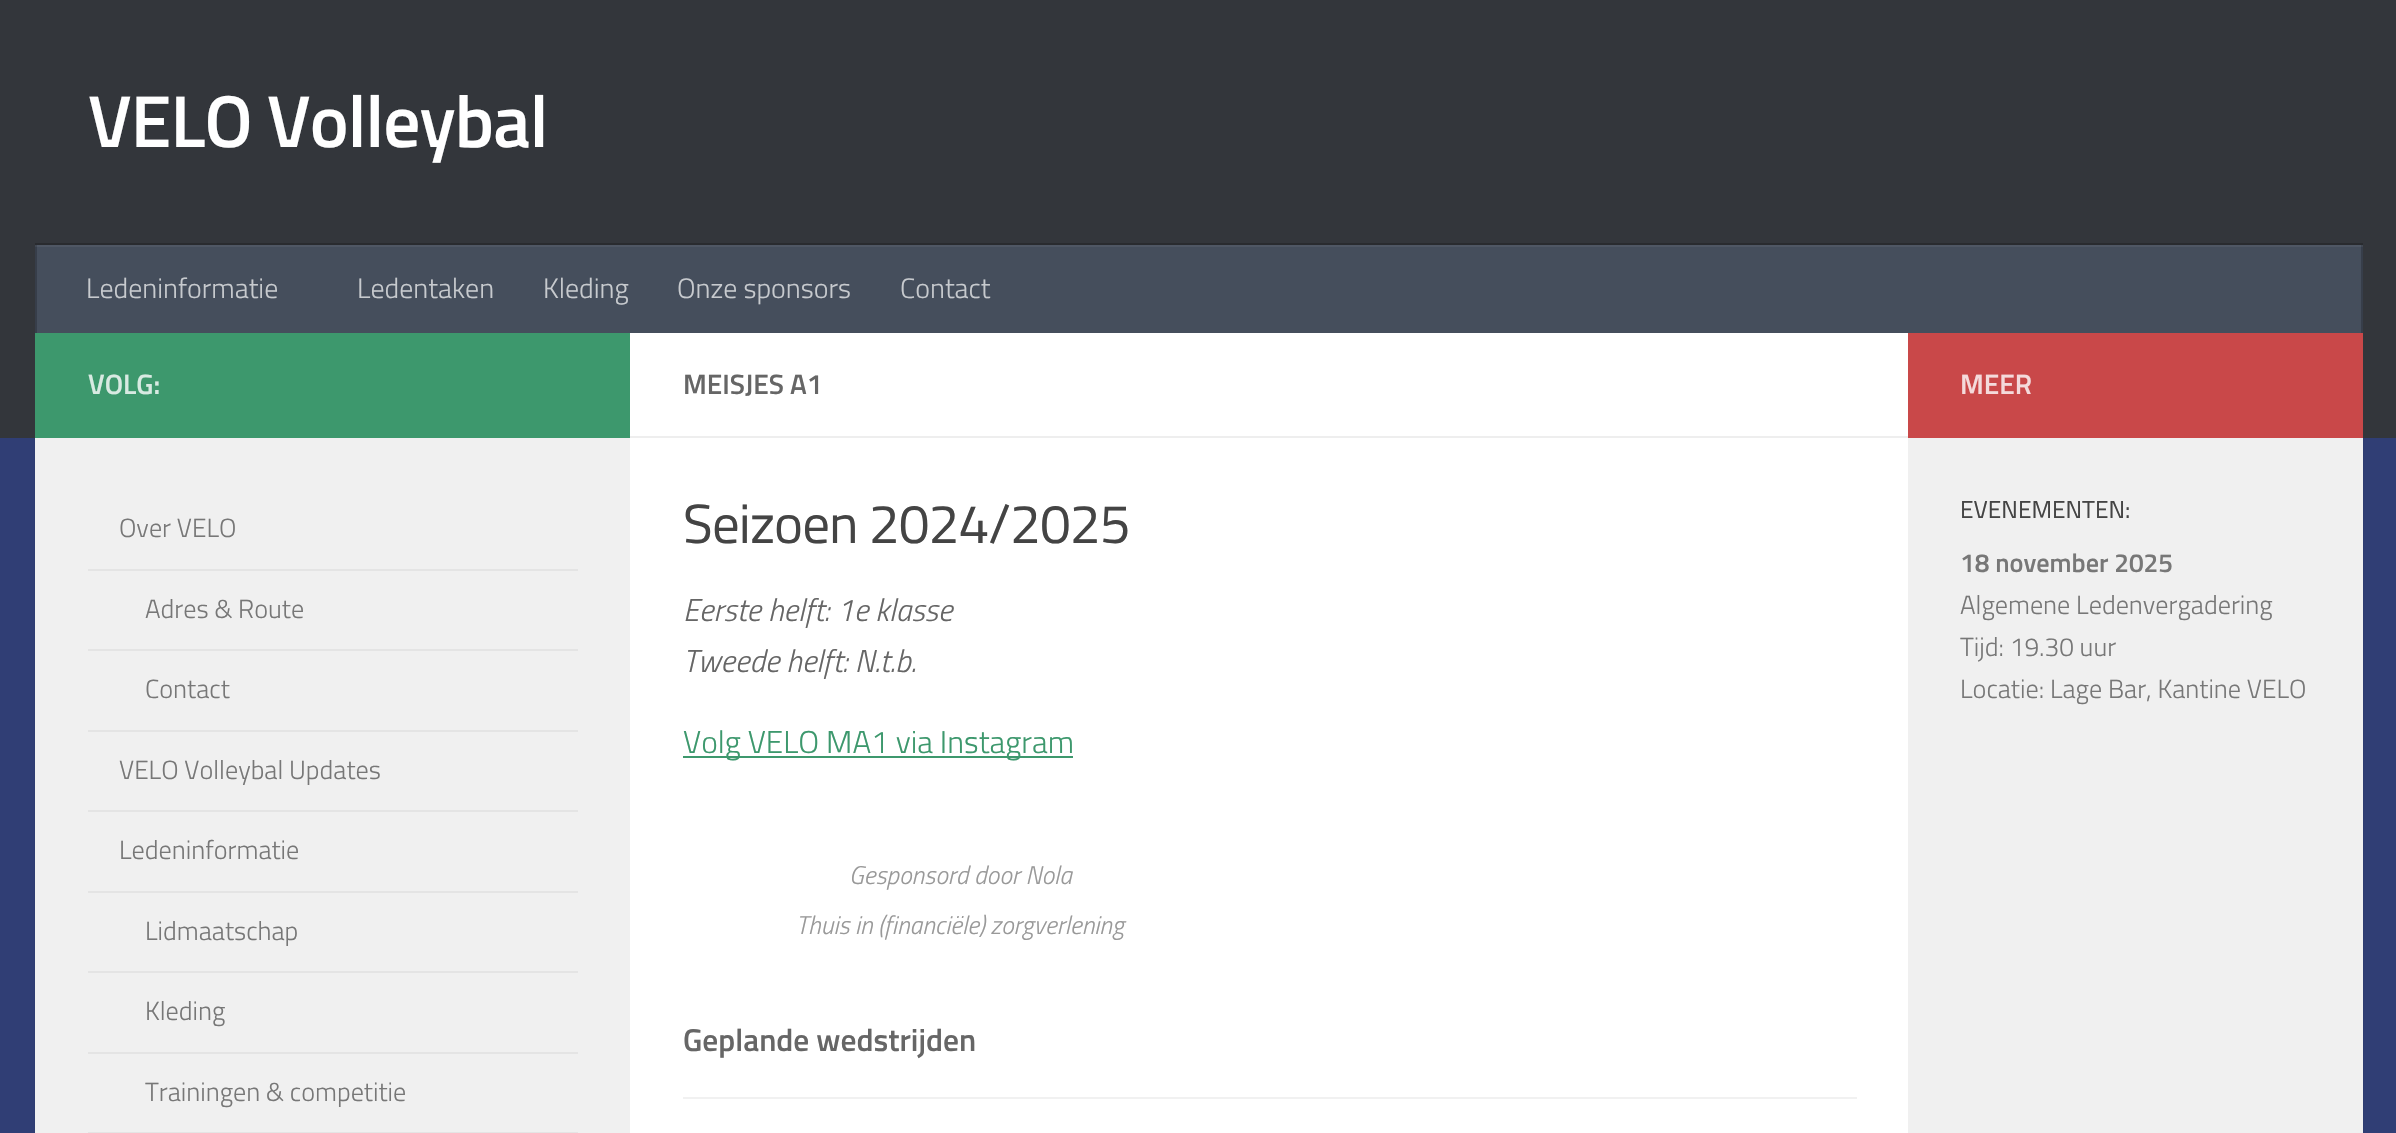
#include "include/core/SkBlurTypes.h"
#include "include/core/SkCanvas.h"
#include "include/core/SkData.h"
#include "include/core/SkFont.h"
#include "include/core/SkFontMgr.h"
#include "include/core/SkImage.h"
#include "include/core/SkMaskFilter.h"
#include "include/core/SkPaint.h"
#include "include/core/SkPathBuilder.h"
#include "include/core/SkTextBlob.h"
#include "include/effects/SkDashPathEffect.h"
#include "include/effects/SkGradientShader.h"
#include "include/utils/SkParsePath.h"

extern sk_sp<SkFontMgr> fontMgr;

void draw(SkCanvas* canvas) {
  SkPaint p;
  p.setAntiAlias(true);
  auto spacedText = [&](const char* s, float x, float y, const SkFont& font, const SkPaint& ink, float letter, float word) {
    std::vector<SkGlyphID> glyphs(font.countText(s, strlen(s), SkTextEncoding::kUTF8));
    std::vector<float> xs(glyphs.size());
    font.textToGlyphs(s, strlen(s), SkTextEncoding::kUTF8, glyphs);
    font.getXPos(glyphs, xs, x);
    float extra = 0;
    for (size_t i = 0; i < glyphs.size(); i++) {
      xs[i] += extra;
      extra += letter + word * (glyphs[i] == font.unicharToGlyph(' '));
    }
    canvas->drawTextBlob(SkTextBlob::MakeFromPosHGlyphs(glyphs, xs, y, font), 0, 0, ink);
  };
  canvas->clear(SkColorSetRGB(48, 62, 117));
  p.setColor(SkColorSetARGB(26, 0, 0, 0));
  p.setMaskFilter(SkMaskFilter::MakeBlur(kNormal_SkBlurStyle, 1));
  canvas->drawRect(SkRect::MakeLTRB(35, 334, 2363, 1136), p);
  p.setMaskFilter(nullptr);
  p.setColor(SkColorSetRGB(51, 54, 59));
  canvas->drawRect(SkRect::MakeLTRB(0, 0, 2396, 438), p);
  p.setColor(SkColorSetRGB(41, 43, 47));
  canvas->drawPath(SkPathBuilder().moveTo(35, 243).lineTo(35, 245).lineTo(2362, 245).lineTo(2362, 331).lineTo(2363, 331).lineTo(2363, 243).close().detach(), p);
  p.setColor(SkColorSetRGB(69, 78, 92));
  canvas->drawRect(SkRect::MakeLTRB(37, 245, 2361, 333), p);
  p.setColor(SkColorSetRGB(55, 62, 74));
  canvas->drawRect(SkRect::MakeLTRB(2361, 245, 2363, 333), p);
  canvas->drawRect(SkRect::MakeLTRB(35, 245, 37, 333), p);
  p.setColor(SkColorSetARGB(13, 255, 255, 255));
  canvas->drawRect(SkRect::MakeLTRB(35, 245, 2363, 247), p);
  p.setColor(SK_ColorWHITE);
  canvas->drawRect(SkRect::MakeLTRB(630, 333, 1908, 1133), p);
  p.setColor(SkColorSetRGB(61, 152, 109));
  canvas->drawRect(SkRect::MakeLTRB(35, 333, 630, 438), p);
  p.setColor(SkColorSetRGB(240, 240, 240));
  canvas->drawRect(SkRect::MakeLTRB(35, 438, 630, 1133), p);
  p.setColor(SkColorSetRGB(228, 228, 228));
  canvas->drawRect(SkRect::MakeLTRB(88, 569, 578, 571), p);
  canvas->drawRect(SkRect::MakeLTRB(88, 649, 578, 651), p);
  canvas->drawRect(SkRect::MakeLTRB(88, 730, 578, 732), p);
  canvas->drawRect(SkRect::MakeLTRB(88, 810, 578, 812), p);
  canvas->drawRect(SkRect::MakeLTRB(88, 891, 578, 893), p);
  canvas->drawRect(SkRect::MakeLTRB(88, 971, 578, 973), p);
  canvas->drawRect(SkRect::MakeLTRB(88, 1052, 578, 1054), p);
  canvas->drawRect(SkRect::MakeLTRB(88, 1132, 578, 1133), p);
  p.setColor(SkColorSetRGB(238, 238, 238));
  canvas->drawRect(SkRect::MakeLTRB(630, 436, 1908, 438), p);
  p.setColor(SkColorSetRGB(61, 152, 109));
  canvas->drawRect(SkRect::MakeLTRB(683, 756, 1073, 758), p);
  p.setColor(SkColorSetRGB(241, 241, 241));
  canvas->drawRect(SkRect::MakeLTRB(683, 1097, 1857, 1099), p);
  p.setColor(SkColorSetRGB(201, 72, 73));
  canvas->drawRect(SkRect::MakeLTRB(1908, 333, 2363, 438), p);
  p.setColor(SkColorSetRGB(240, 240, 240));
  canvas->drawRect(SkRect::MakeLTRB(1908, 438, 2363, 1133), p);
  SkFont font1(fontMgr->matchFamilyStyle("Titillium", SkFontStyle(600, SkFontStyle::kNormal_Width, SkFontStyle::kUpright_Slant)), 73.5f);
  font1.setSubpixel(true);
  p.setColor(SK_ColorWHITE);
  spacedText("VELO Volleybal", 88, 147, font1, p, -0.9f, 0);
  SkFont font2(fontMgr->matchFamilyStyle("Titillium", SkFontStyle(300, SkFontStyle::kNormal_Width, SkFontStyle::kUpright_Slant)), 28);
  font2.setSubpixel(true);
  p.setColor(SkColorSetRGB(199, 202, 206));
  canvas->drawString("Ledeninformatie", 86, 298, font2, p);
  canvas->drawString("Ledentaken", 357, 298, font2, p);
  canvas->drawString("Kleding", 543, 298, font2, p);
  canvas->drawString("Onze sponsors", 677, 298, font2, p);
  canvas->drawString("Contact", 900, 298, font2, p);
  SkFont font3(fontMgr->matchFamilyStyle("Titillium", SkFontStyle(600, SkFontStyle::kNormal_Width, SkFontStyle::kUpright_Slant)), 28);
  font3.setSubpixel(true);
  p.setColor(SkColorSetRGB(216, 234, 226));
  canvas->drawString("VOLG:", 88, 394, font3, p);
  SkFont font4(fontMgr->matchFamilyStyle("Titillium", SkFontStyle(300, SkFontStyle::kNormal_Width, SkFontStyle::kUpright_Slant)), 26.25f);
  font4.setSubpixel(true);
  p.setColor(SkColorSetRGB(119, 119, 119));
  canvas->drawString("Over VELO", 119, 537, font4, p);
  canvas->drawString("Adres & Route", 145, 618, font4, p);
  canvas->drawString("Contact", 145, 698, font4, p);
  canvas->drawString("VELO Volleybal Updates", 119, 779, font4, p);
  canvas->drawString("Ledeninformatie", 119, 859, font4, p);
  canvas->drawString("Lidmaatschap", 145, 940, font4, p);
  canvas->drawString("Kleding", 145, 1020, font4, p);
  canvas->drawString("Trainingen & competitie", 145, 1101, font4, p);
  p.setColor(SkColorSetRGB(102, 102, 102));
  canvas->drawString("MEISJES A1", 683, 394, font3, p);
  SkFont font5(fontMgr->matchFamilyStyle("Titillium", SkFontStyle::Normal()), 55);
  font5.setSubpixel(true);
  p.setColor(SkColorSetRGB(68, 68, 68));
  spacedText("Seizoen 2024/2025", 683, 543, font5, p, -0.9f, 0);
  SkFont font6(fontMgr->matchFamilyStyle("Titillium", SkFontStyle(300, SkFontStyle::kNormal_Width, SkFontStyle::kItalic_Slant)), 31.5f);
  font6.setSubpixel(true);
  p.setColor(SkColorSetRGB(102, 102, 102));
  canvas->drawString("Eerste helft: 1e klasse", 683, 621, font6, p);
  canvas->drawString("Tweede helft: N.t.b.", 683, 672, font6, p);
  SkFont font7(fontMgr->matchFamilyStyle("Titillium", SkFontStyle(300, SkFontStyle::kNormal_Width, SkFontStyle::kUpright_Slant)), 31.5f);
  font7.setSubpixel(true);
  p.setColor(SkColorSetRGB(61, 152, 109));
  canvas->drawString("Volg VELO MA1 via Instagram", 683, 753, font7, p);
  SkFont font8(fontMgr->matchFamilyStyle("Titillium", SkFontStyle(300, SkFontStyle::kNormal_Width, SkFontStyle::kItalic_Slant)), 25.6f);
  font8.setSubpixel(true);
  p.setColor(SkColorSetRGB(153, 153, 153));
  canvas->drawString("Gesponsord door Nola", 849, 884, font8, p);
  canvas->drawString("Thuis in (financiële) zorgverlening", 796, 934, font8, p);
  SkFont font9(fontMgr->matchFamilyStyle("Titillium", SkFontStyle(600, SkFontStyle::kNormal_Width, SkFontStyle::kUpright_Slant)), 31.5f);
  font9.setSubpixel(true);
  p.setColor(SkColorSetRGB(102, 102, 102));
  canvas->drawString("Geplande wedstrijden", 683, 1051, font9, p);
  p.setColor(SkColorSetRGB(244, 218, 219));
  canvas->drawString("MEER", 1960, 394, font3, p);
  SkFont font10(fontMgr->matchFamilyStyle("Titillium", SkFontStyle::Normal()), 24.5f);
  font10.setSubpixel(true);
  p.setColor(SkColorSetRGB(68, 68, 68));
  canvas->drawString("EVENEMENTEN:", 1960, 518, font10, p);
  SkFont font11(fontMgr->matchFamilyStyle("Titillium", SkFontStyle(600, SkFontStyle::kNormal_Width, SkFontStyle::kUpright_Slant)), 26.25f);
  font11.setSubpixel(true);
  p.setColor(SkColorSetRGB(119, 119, 119));
  canvas->drawString("18 november 2025", 1960, 572, font11, p);
  canvas->drawString("Algemene Ledenvergadering", 1960, 614, font4, p);
  canvas->drawString("Tijd: 19.30 uur", 1960, 656, font4, p);
  canvas->drawString("Locatie: Lage Bar, Kantine VELO", 1960, 698, font4, p);
}
